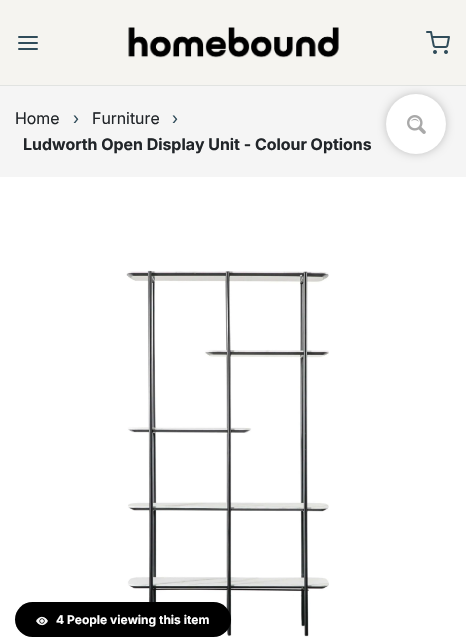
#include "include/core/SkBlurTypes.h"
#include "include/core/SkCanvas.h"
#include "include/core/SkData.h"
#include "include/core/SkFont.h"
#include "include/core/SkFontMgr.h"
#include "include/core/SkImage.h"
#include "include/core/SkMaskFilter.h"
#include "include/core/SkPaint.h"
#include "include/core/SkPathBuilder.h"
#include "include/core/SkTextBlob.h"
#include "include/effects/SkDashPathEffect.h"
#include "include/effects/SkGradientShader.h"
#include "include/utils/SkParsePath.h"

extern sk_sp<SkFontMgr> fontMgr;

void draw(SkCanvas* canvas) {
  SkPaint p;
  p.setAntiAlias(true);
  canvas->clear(SkColorSetRGB(245, 244, 240));
  p.setColor(SkColorSetRGB(225, 227, 225));
  canvas->drawRect(SkRect::MakeLTRB(0, 85, 466, 86), p);
  p.setStyle(SkPaint::kStroke_Style);
  p.setStrokeWidth(2);
  p.setStrokeCap(SkPaint::kRound_Cap);
  p.setStrokeJoin(SkPaint::kRound_Join);
  p.setColor(SkColorSetRGB(48, 76, 90));
  canvas->drawPath(SkPathBuilder().moveTo(19, 43).lineTo(37, 43).moveTo(19, 37).lineTo(37, 37).moveTo(19, 49).lineTo(37, 49).detach(), p);
  canvas->drawImageRect(SkImages::DeferredFromEncodedData(SkData::MakeFromFileName("images/1.png")), SkRect::MakeLTRB(128, 27, 339, 58), SkSamplingOptions());
  canvas->drawImageRect(SkImages::DeferredFromEncodedData(SkData::MakeFromFileName("images/2.png")), SkRect::MakeLTRB(426, 31, 450, 54), SkSamplingOptions());
  p.setStyle(SkPaint::kFill_Style);
  p.setColor(SkColorSetRGB(245, 245, 245));
  canvas->drawRect(SkRect::MakeLTRB(0, 86, 466, 177), p);
  p.setColor(SK_ColorWHITE);
  canvas->drawRect(SkRect::MakeLTRB(0, 177, 466, 643), p);
  canvas->drawImageRect(SkImages::DeferredFromEncodedData(SkData::MakeFromFileName("images/3.png")), SkRect::MakeLTRB(126, 270, 329, 637), SkSamplingOptions());
  p.setColor(SK_ColorBLACK);
  canvas->drawRoundRect(SkRect::MakeLTRB(15, 602, 231, 637), 17.5f, 17.5f, p);
  canvas->drawImageRect(SkImages::DeferredFromEncodedData(SkData::MakeFromFileName("images/4.png")), SkRect::MakeLTRB(36, 616, 48, 626), SkSamplingOptions());
  p.setMaskFilter(SkMaskFilter::MakeBlur(kNormal_SkBlurStyle, 7.5f));
  canvas->drawRoundRect(SkRect::MakeLTRB(394, 102, 438, 146), 22, 22, p);
  p.setMaskFilter(nullptr);
  p.setColor(SK_ColorWHITE);
  canvas->drawCircle(416, 124, 30, p);
  canvas->drawImageRect(SkImages::DeferredFromEncodedData(SkData::MakeFromFileName("images/5.png")), SkRect::MakeLTRB(407, 115, 426, 134), SkSamplingOptions());
  SkFont font1(fontMgr->matchFamilyStyle("Inter", SkFontStyle::Normal()), 16);
  font1.setSubpixel(true);
  p.setColor(SkColorSetRGB(33, 37, 41));
  canvas->drawString("Home", 15, 124, font1, p);
  p.setColor(SkColorSetRGB(48, 76, 90));
  canvas->drawString("›", 73, 124, font1, p);
  p.setColor(SkColorSetRGB(33, 37, 41));
  canvas->drawString("Furniture", 92, 124, font1, p);
  p.setColor(SkColorSetRGB(48, 76, 90));
  canvas->drawString("›", 172, 124, font1, p);
  SkFont font2(fontMgr->matchFamilyStyle("Inter", SkFontStyle::Bold()), 16);
  font2.setSubpixel(true);
  p.setColor(SkColorSetRGB(33, 37, 41));
  canvas->drawString("Ludworth Open Display Unit - Colour Options", 23, 150, font2, p);
  SkFont font3(fontMgr->matchFamilyStyle("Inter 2", SkFontStyle::Bold()), 12);
  font3.setSubpixel(true);
  p.setColor(SK_ColorWHITE);
  canvas->drawString("4 People viewing this item", 56, 624, font3, p);
}
